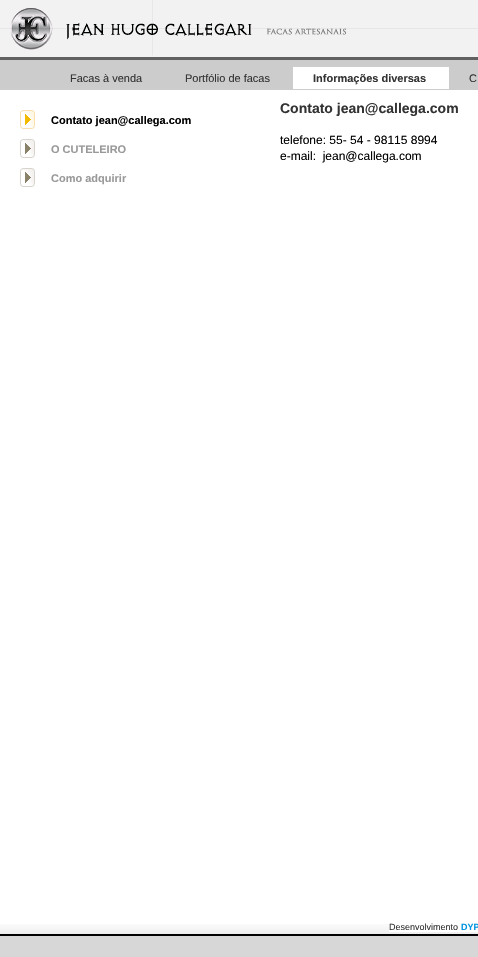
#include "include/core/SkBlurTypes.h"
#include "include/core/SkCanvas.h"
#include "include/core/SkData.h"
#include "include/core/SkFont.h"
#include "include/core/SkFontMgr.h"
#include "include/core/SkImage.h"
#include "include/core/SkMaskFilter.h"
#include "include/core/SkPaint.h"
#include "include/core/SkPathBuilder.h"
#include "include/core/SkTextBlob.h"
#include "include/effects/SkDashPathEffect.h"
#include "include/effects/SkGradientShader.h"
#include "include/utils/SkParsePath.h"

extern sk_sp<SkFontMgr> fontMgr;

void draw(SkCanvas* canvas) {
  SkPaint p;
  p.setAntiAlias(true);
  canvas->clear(SK_ColorWHITE);
  canvas->drawImageRect(SkImages::DeferredFromEncodedData(SkData::MakeFromFileName("images/1.png")), SkRect::MakeLTRB(0, 0, 478, 60), SkSamplingOptions());
  p.setColor(SkColorSetRGB(204, 204, 204));
  canvas->drawRect(SkRect::MakeLTRB(0, 60, 478, 90), p);
  p.setColor(SK_ColorWHITE);
  canvas->drawRect(SkRect::MakeLTRB(293, 67, 449, 89), p);
  canvas->drawImageRect(SkImages::DeferredFromEncodedData(SkData::MakeFromFileName("images/2.png")), SkRect::MakeLTRB(20, 110, 35, 129), SkSamplingOptions());
  canvas->drawImageRect(SkImages::DeferredFromEncodedData(SkData::MakeFromFileName("images/3.png")), SkRect::MakeLTRB(20, 139, 35, 158), SkSamplingOptions());
  canvas->drawImageRect(SkImages::DeferredFromEncodedData(SkData::MakeFromFileName("images/3.png")), SkRect::MakeLTRB(20, 168, 35, 187), SkSamplingOptions());
  canvas->drawImageRect(SkImages::DeferredFromEncodedData(SkData::MakeFromFileName("images/4.png")), SkRect::MakeLTRB(0, 924, 478, 957), SkSamplingOptions());
  canvas->drawRect(SkRect::MakeLTRB(389, 924, 478, 932), p);
  SkFont font1(fontMgr->matchFamilyStyle("Liberation Sans", SkFontStyle::Normal()), 11);
  font1.setSubpixel(true);
  p.setColor(SkColorSetRGB(51, 51, 51));
  canvas->drawString("Facas à venda", 70, 82, font1, p);
  canvas->drawString("Portfólio de facas", 185, 82, font1, p);
  SkFont font2(fontMgr->matchFamilyStyle("Liberation Sans", SkFontStyle::Bold()), 11);
  font2.setSubpixel(true);
  canvas->drawString("Informações diversas", 313, 82, font2, p);
  canvas->drawString("C", 469, 82, font1, p);
  p.setColor(SK_ColorBLACK);
  canvas->drawString("Contato jean@callega.com", 51, 124, font2, p);
  p.setColor(SkColorSetRGB(153, 153, 153));
  canvas->drawString("O CUTELEIRO", 51, 153, font2, p);
  canvas->drawString("Como adquirir", 51, 182, font2, p);
  SkFont font3(fontMgr->matchFamilyStyle("Liberation Sans", SkFontStyle::Bold()), 14);
  font3.setSubpixel(true);
  p.setColor(SkColorSetRGB(51, 51, 51));
  canvas->drawString("Contato jean@callega.com", 280, 113, font3, p);
  SkFont font4(fontMgr->matchFamilyStyle("Liberation Sans", SkFontStyle::Normal()), 12);
  font4.setSubpixel(true);
  p.setColor(SK_ColorBLACK);
  canvas->drawString("telefone: 55- 54 - 98115 8994", 280, 144, font4, p);
  canvas->drawString("e-mail:  jean@callega.com", 280, 160, font4, p);
  SkFont font5(fontMgr->matchFamilyStyle("Liberation Sans", SkFontStyle::Normal()), 9);
  font5.setSubpixel(true);
  p.setColor(SkColorSetRGB(51, 51, 51));
  canvas->drawString("Desenvolvimento", 389, 930, font5, p);
  SkFont font6(fontMgr->matchFamilyStyle("Liberation Sans", SkFontStyle::Bold()), 9);
  font6.setSubpixel(true);
  p.setColor(SkColorSetRGB(1, 147, 222));
  canvas->drawString("DYP", 461, 930, font6, p);
}
